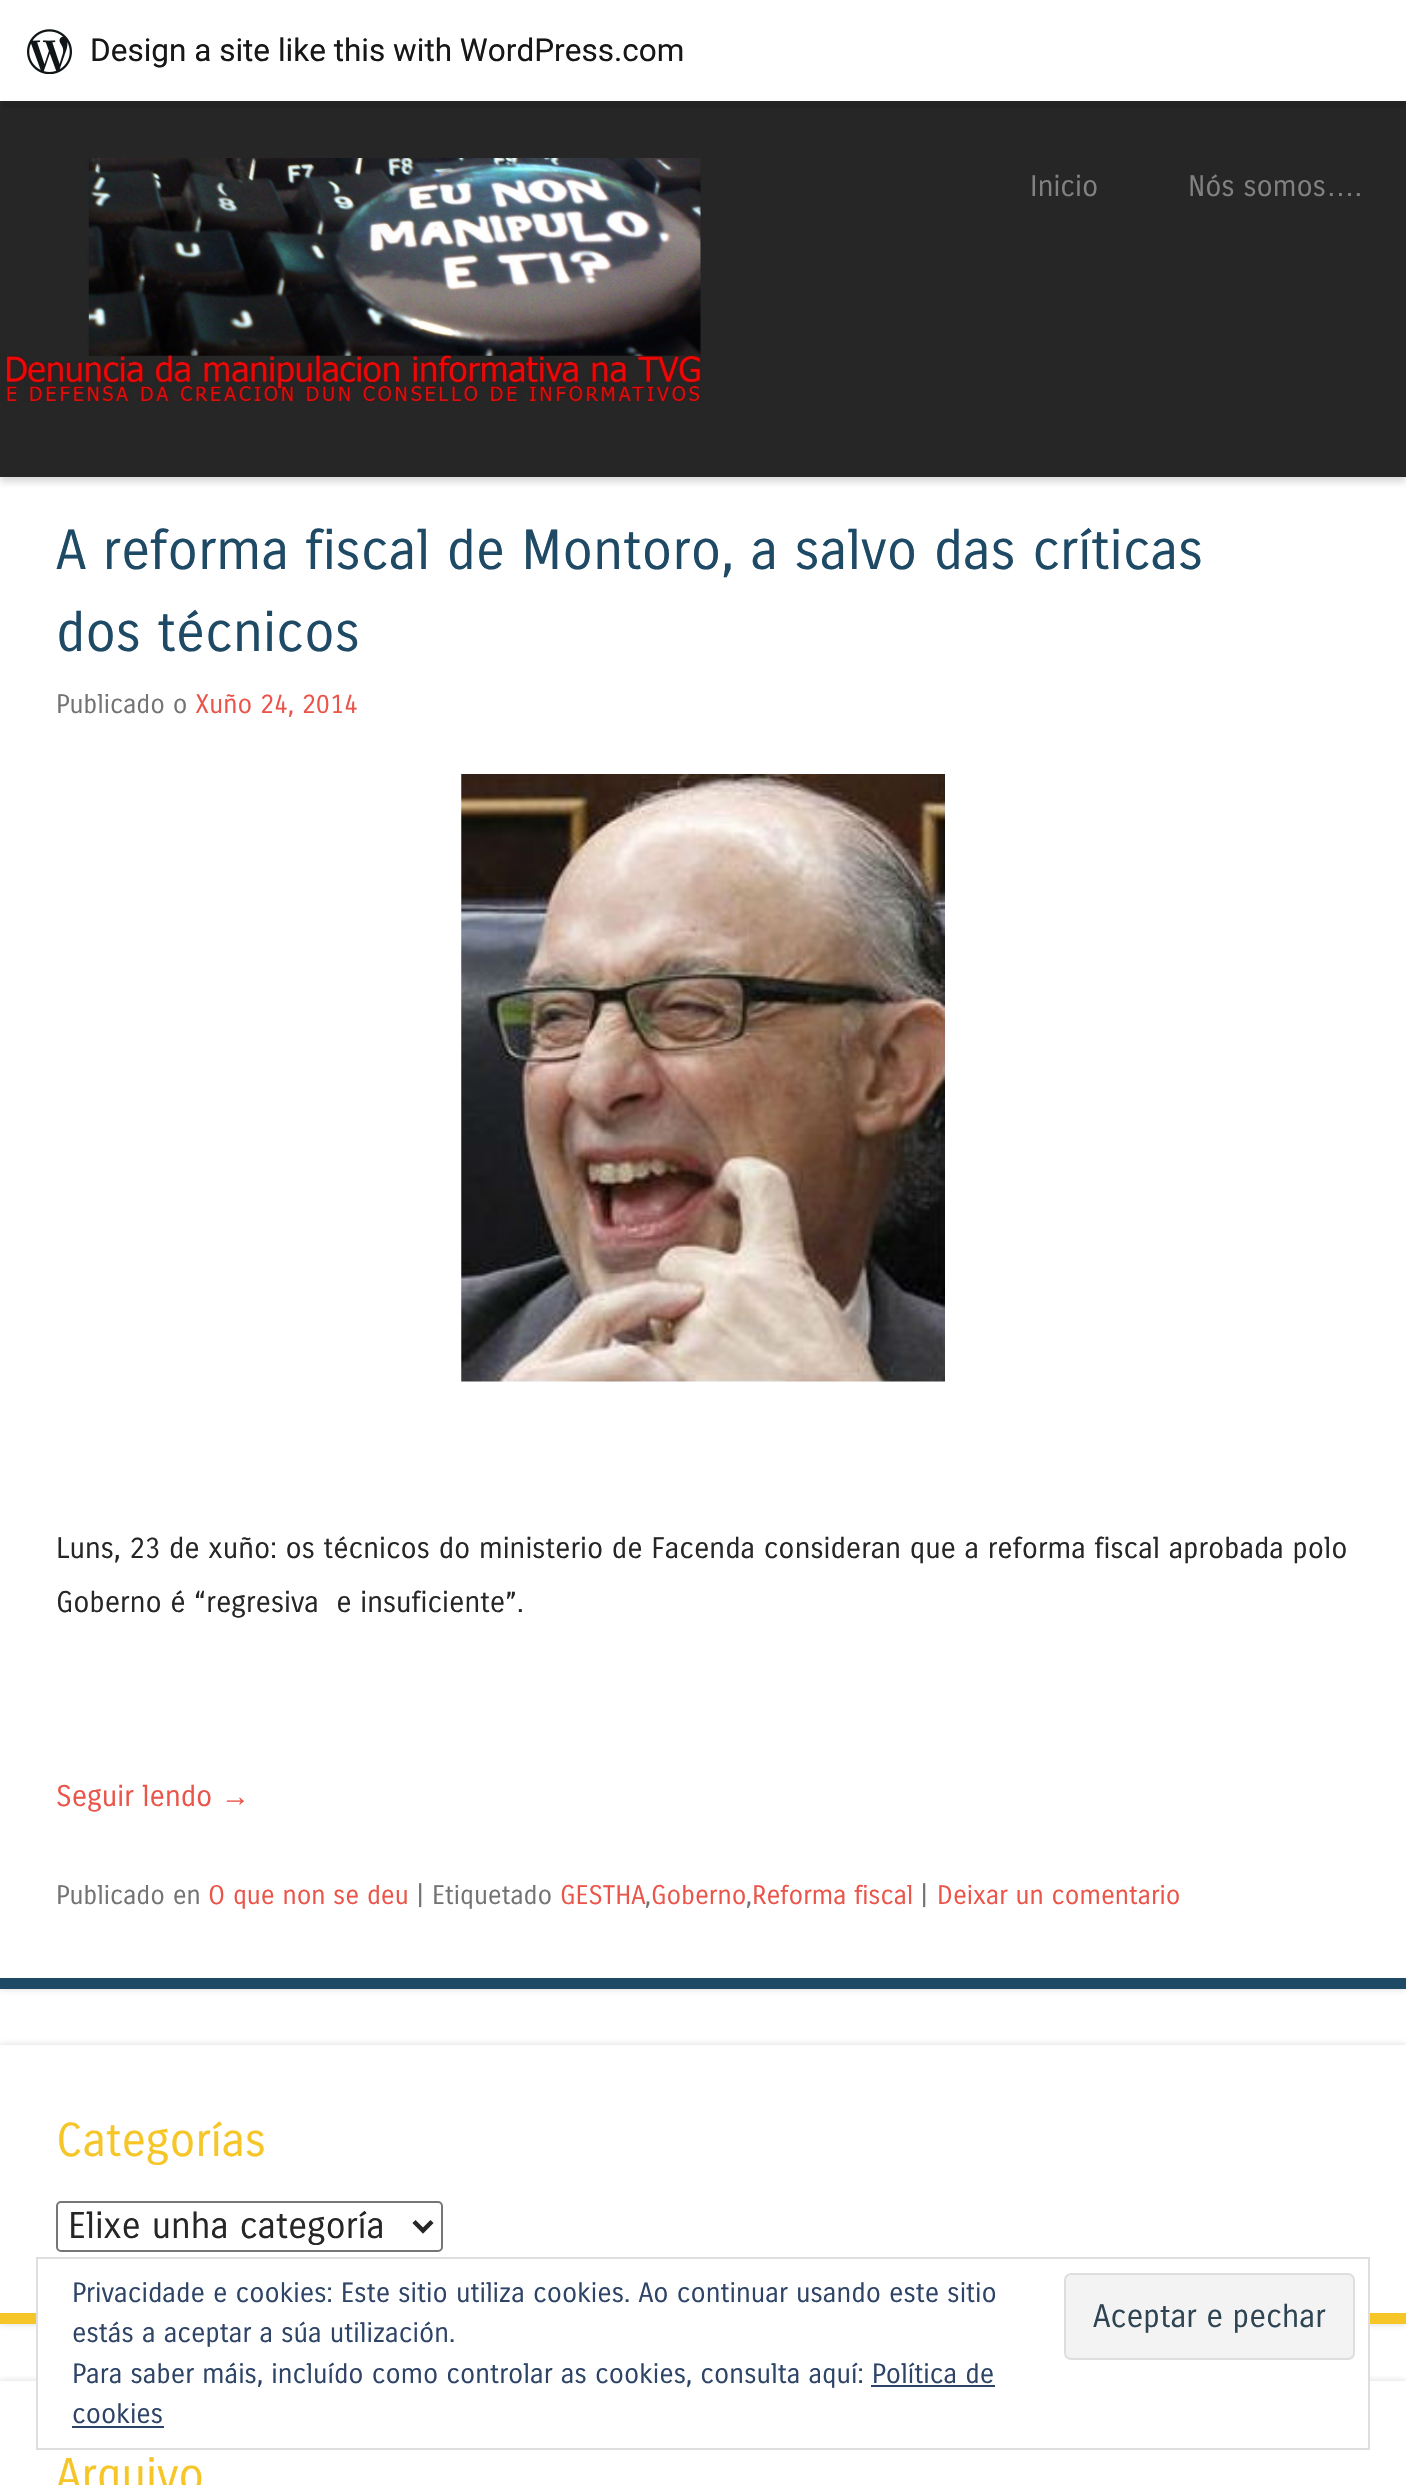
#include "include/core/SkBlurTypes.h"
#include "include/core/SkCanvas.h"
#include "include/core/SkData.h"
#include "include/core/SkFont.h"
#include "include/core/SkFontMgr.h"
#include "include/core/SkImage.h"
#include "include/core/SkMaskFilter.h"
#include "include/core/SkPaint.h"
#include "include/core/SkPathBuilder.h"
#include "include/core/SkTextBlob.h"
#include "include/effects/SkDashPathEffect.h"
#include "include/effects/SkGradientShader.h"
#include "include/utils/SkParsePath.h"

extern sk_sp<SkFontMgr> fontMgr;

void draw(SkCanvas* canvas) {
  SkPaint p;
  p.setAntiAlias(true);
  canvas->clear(SK_ColorWHITE);
  p.setColor(SkColorSetARGB(64, 100, 100, 100));
  p.setMaskFilter(SkMaskFilter::MakeBlur(kNormal_SkBlurStyle, 3.5f));
  canvas->drawRect(SkRect::MakeLTRB(0, 470, 1406, 1989), p);
  p.setMaskFilter(nullptr);
  p.setColor(SK_ColorWHITE);
  canvas->drawRect(SkRect::MakeLTRB(0, 477, 1406, 1978), p);
  p.setColor(SkColorSetARGB(64, 100, 100, 100));
  p.setMaskFilter(SkMaskFilter::MakeBlur(kNormal_SkBlurStyle, 3.5f));
  canvas->drawRect(SkRect::MakeLTRB(0, 106, 1406, 482), p);
  p.setMaskFilter(nullptr);
  p.setColor(SkColorSetRGB(38, 38, 38));
  canvas->drawRect(SkRect::MakeLTRB(0, 101, 1406, 477), p);
  p.setColor(SkColorSetRGB(35, 35, 35));
  canvas->drawPath(SkPathBuilder().moveTo(2, 101).lineTo(2, 108).lineTo(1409, 108).lineTo(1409, 7).lineTo(1406, 7).lineTo(1406, 101).close().detach(), p);
  canvas->drawImageRect(SkImages::DeferredFromEncodedData(SkData::MakeFromFileName("images/1.png")), SkRect::MakeLTRB(27, 29, 72, 74), SkSamplingOptions());
  canvas->drawImageRect(SkImages::DeferredFromEncodedData(SkData::MakeFromFileName("images/2.png")), SkRect::MakeLTRB(0, 158, 702, 402), SkSamplingOptions());
  p.setColor(SkColorSetRGB(30, 74, 102));
  canvas->drawRect(SkRect::MakeLTRB(0, 1978, 1406, 1989), p);
  canvas->drawImageRect(SkImages::DeferredFromEncodedData(SkData::MakeFromFileName("images/3.png")), SkRect::MakeLTRB(461, 774, 945, 1382), SkSamplingOptions());
  p.setColor(SkColorSetARGB(64, 100, 100, 100));
  p.setMaskFilter(SkMaskFilter::MakeBlur(kNormal_SkBlurStyle, 3.5f));
  canvas->drawRect(SkRect::MakeLTRB(0, 2045, 1406, 2324), p);
  p.setMaskFilter(nullptr);
  p.setColor(SK_ColorWHITE);
  canvas->drawRect(SkRect::MakeLTRB(0, 2045, 1406, 2313), p);
  p.setColor(SkColorSetRGB(246, 198, 40));
  canvas->drawRect(SkRect::MakeLTRB(0, 2313, 1406, 2324), p);
  p.setStyle(SkPaint::kStroke_Style);
  p.setStrokeWidth(2);
  p.setColor(SkColorSetRGB(118, 118, 118));
  canvas->drawRoundRect(SkRect::MakeLTRB(57, 2202, 442, 2251), 4, 4, p);
  p.setStrokeWidth(4.5f);
  p.setColor(SkColorSetRGB(38, 38, 38));
  canvas->drawPath(SkPathBuilder().moveTo(414, 2221.5f).lineTo(423, 2230.5f).lineTo(432, 2221.5f).detach(), p);
  canvas->save();
  canvas->clipRect(SkRect::MakeLTRB(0, 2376, 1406, 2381));
  p.setStyle(SkPaint::kFill_Style);
  p.setColor(SkColorSetARGB(64, 100, 100, 100));
  p.setMaskFilter(SkMaskFilter::MakeBlur(kNormal_SkBlurStyle, 3.5f));
  canvas->drawRect(SkRect::MakeLTRB(0, 2381, 1406, 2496), p);
  p.setMaskFilter(nullptr);
  canvas->restore();
  p.setColor(SK_ColorWHITE);
  canvas->drawRect(SkRect::MakeLTRB(38, 2313, 1368, 2381), p);
  p.setStyle(SkPaint::kStroke_Style);
  p.setStrokeWidth(2);
  p.setColor(SkColorSetRGB(222, 222, 222));
  canvas->drawRect(SkRect::MakeLTRB(37, 2258, 1369, 2449), p);
  p.setStyle(SkPaint::kFill_Style);
  p.setColor(SkColorSetRGB(243, 243, 243));
  canvas->drawRoundRect(SkRect::MakeLTRB(1065, 2274, 1354, 2359), 6, 6, p);
  p.setStyle(SkPaint::kStroke_Style);
  p.setColor(SkColorSetRGB(222, 222, 222));
  canvas->drawRoundRect(SkRect::MakeLTRB(1065, 2274, 1354, 2359), 6, 6, p);
  p.setStyle(SkPaint::kFill_Style);
  p.setColor(SkColorSetRGB(46, 68, 103));
  canvas->drawRect(SkRect::MakeLTRB(871, 2385, 995, 2387), p);
  canvas->drawRect(SkRect::MakeLTRB(72, 2426, 164, 2428), p);
  SkFont font1(fontMgr->matchFamilyStyle("Roboto", SkFontStyle::Normal()), 31.5f);
  font1.setSubpixel(true);
  p.setColor(SkColorSetRGB(23, 23, 23));
  canvas->drawString("Design a site like this with WordPress.com", 90, 61, font1, p);
  SkFont font2(fontMgr->matchFamilyStyle("Carrois Gothic", SkFontStyle::Normal()), 28.8f);
  font2.setSubpixel(true);
  p.setColor(SkColorSetRGB(129, 129, 129));
  canvas->drawString("Inicio", 1030, 196, font2, p);
  canvas->drawString("Nós somos", 1188, 196, font2, p);
  SkFont font3(fontMgr->matchFamilyStyle("Liberation Sans", SkFontStyle::Normal()), 28.8f);
  font3.setSubpixel(true);
  canvas->drawString("…", 1326, 196, font3, p);
  canvas->drawString(".", 1355, 196, font2, p);
  SkFont font4(fontMgr->matchFamilyStyle("Carrois Gothic", SkFontStyle::Normal()), 54.75f);
  font4.setSubpixel(true);
  p.setColor(SkColorSetRGB(30, 74, 102));
  canvas->drawString("A reforma fiscal de Montoro, a salvo das críticas", 56, 569, font4, p);
  canvas->drawString("dos técnicos", 56, 651, font4, p);
  SkFont font5(fontMgr->matchFamilyStyle("Carrois Gothic", SkFontStyle::Normal()), 26);
  font5.setSubpixel(true);
  p.setColor(SkColorSetRGB(115, 115, 115));
  canvas->drawString("Publicado o", 56, 713, font5, p);
  p.setColor(SkColorSetRGB(234, 84, 73));
  canvas->drawString("Xuño 24, 2014", 195, 713, font5, p);
  p.setColor(SkColorSetRGB(38, 38, 38));
  canvas->drawString("Luns, 23 de xuño: os técnicos do ministerio de Facenda consideran que a reforma fiscal aprobada polo", 56, 1558, font2, p);
  canvas->drawString("Goberno é “regresiva  e insuficiente”.", 56, 1612, font2, p);
  p.setColor(SkColorSetRGB(234, 84, 73));
  canvas->drawString("Seguir lendo", 56, 1806, font2, p);
  canvas->drawString("→", 221, 1806, font3, p);
  p.setColor(SkColorSetRGB(115, 115, 115));
  canvas->drawString("Publicado en", 56, 1904, font5, p);
  p.setColor(SkColorSetRGB(234, 84, 73));
  canvas->drawString("O que non se deu", 208, 1904, font5, p);
  p.setColor(SkColorSetRGB(115, 115, 115));
  canvas->drawString("| Etiquetado", 416, 1904, font5, p);
  p.setColor(SkColorSetRGB(234, 84, 73));
  canvas->drawString("GESTHA", 560, 1904, font5, p);
  p.setColor(SkColorSetRGB(115, 115, 115));
  canvas->drawString(",", 645, 1904, font5, p);
  p.setColor(SkColorSetRGB(234, 84, 73));
  canvas->drawString("Goberno", 651, 1904, font5, p);
  p.setColor(SkColorSetRGB(115, 115, 115));
  canvas->drawString(",", 746, 1904, font5, p);
  p.setColor(SkColorSetRGB(234, 84, 73));
  canvas->drawString("Reforma fiscal", 752, 1904, font5, p);
  p.setColor(SkColorSetRGB(115, 115, 115));
  canvas->drawString("|", 920, 1904, font5, p);
  p.setColor(SkColorSetRGB(234, 84, 73));
  canvas->drawString("Deixar un comentario", 937, 1904, font5, p);
  SkFont font6(fontMgr->matchFamilyStyle("Carrois Gothic", SkFontStyle::Normal()), 46);
  font6.setSubpixel(true);
  p.setColor(SkColorSetRGB(246, 198, 40));
  canvas->drawString("Categorías", 56, 2156, font6, p);
  SkFont font7(fontMgr->matchFamilyStyle("Carrois Gothic", SkFontStyle::Normal()), 36);
  font7.setSubpixel(true);
  p.setColor(SkColorSetRGB(38, 38, 38));
  canvas->drawString("Elixe unha categoría", 68, 2238, font7, p);
  p.setColor(SkColorSetRGB(246, 198, 40));
  canvas->drawString("Arquivo", 56, 2491, font6, p);
  SkFont font8(fontMgr->matchFamilyStyle("Carrois Gothic", SkFontStyle::Normal()), 27);
  font8.setSubpixel(true);
  p.setColor(SkColorSetRGB(46, 68, 103));
  canvas->drawString("Privacidade e cookies: Este sitio utiliza cookies. Ao continuar usando este sitio", 72, 2302, font8, p);
  canvas->drawString("estás a aceptar a súa utilización.", 72, 2342, font8, p);
  SkFont font9(fontMgr->matchFamilyStyle("Carrois Gothic", SkFontStyle::Normal()), 31.5f);
  font9.setSubpixel(true);
  p.setColor(SkColorSetRGB(46, 68, 83));
  canvas->drawString("Aceptar e pechar", 1093, 2327, font9, p);
  p.setColor(SkColorSetRGB(46, 68, 103));
  canvas->drawString("Para saber máis, incluído como controlar as cookies, consulta aquí: Política de", 72, 2383, font8, p);
  canvas->drawString("cookies", 72, 2423, font8, p);
}
